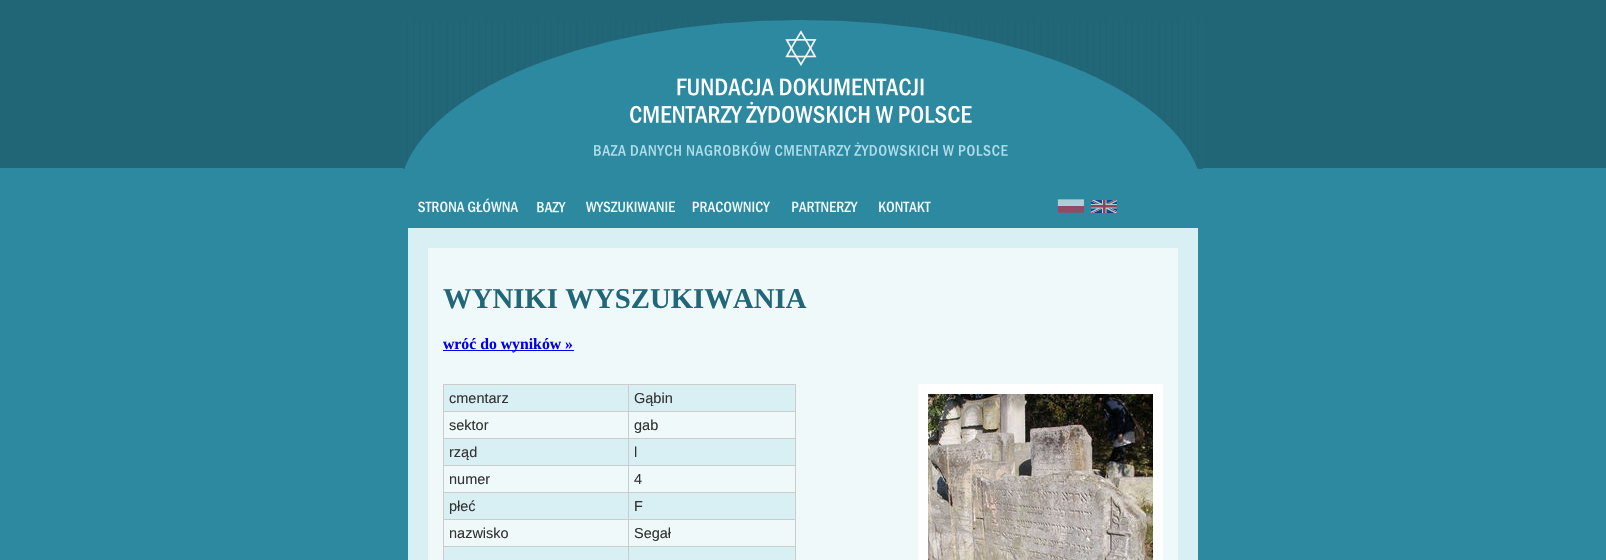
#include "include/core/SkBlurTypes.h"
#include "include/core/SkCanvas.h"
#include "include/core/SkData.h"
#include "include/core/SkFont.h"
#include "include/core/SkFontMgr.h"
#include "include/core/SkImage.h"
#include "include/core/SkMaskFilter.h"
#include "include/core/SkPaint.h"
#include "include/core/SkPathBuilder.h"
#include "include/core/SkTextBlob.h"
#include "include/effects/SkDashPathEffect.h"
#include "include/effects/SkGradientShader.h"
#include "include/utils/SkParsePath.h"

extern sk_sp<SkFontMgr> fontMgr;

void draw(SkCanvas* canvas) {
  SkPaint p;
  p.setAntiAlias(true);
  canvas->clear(SkColorSetRGB(33, 102, 119));
  p.setColor(SkColorSetRGB(44, 137, 160));
  canvas->drawRect(SkRect::MakeLTRB(0, 168, 1606, 560), p);
  canvas->drawImageRect(SkImages::DeferredFromEncodedData(SkData::MakeFromFileName("images/1.png")), SkRect::MakeLTRB(403, 20, 1203, 169), SkSamplingOptions());
  canvas->drawImageRect(SkImages::DeferredFromEncodedData(SkData::MakeFromFileName("images/2.png")), SkRect::MakeLTRB(418, 198, 518, 213), SkSamplingOptions());
  canvas->drawImageRect(SkImages::DeferredFromEncodedData(SkData::MakeFromFileName("images/3.png")), SkRect::MakeLTRB(537, 201, 566, 213), SkSamplingOptions());
  canvas->drawImageRect(SkImages::DeferredFromEncodedData(SkData::MakeFromFileName("images/4.png")), SkRect::MakeLTRB(586, 201, 675, 213), SkSamplingOptions());
  canvas->drawImageRect(SkImages::DeferredFromEncodedData(SkData::MakeFromFileName("images/5.png")), SkRect::MakeLTRB(692, 201, 770, 213), SkSamplingOptions());
  canvas->drawImageRect(SkImages::DeferredFromEncodedData(SkData::MakeFromFileName("images/6.png")), SkRect::MakeLTRB(792, 201, 858, 212), SkSamplingOptions());
  canvas->drawImageRect(SkImages::DeferredFromEncodedData(SkData::MakeFromFileName("images/7.png")), SkRect::MakeLTRB(879, 201, 931, 213), SkSamplingOptions());
  canvas->drawImageRect(SkImages::DeferredFromEncodedData(SkData::MakeFromFileName("images/8.png")), SkRect::MakeLTRB(1057, 199, 1084, 213), SkSamplingOptions());
  canvas->drawImageRect(SkImages::DeferredFromEncodedData(SkData::MakeFromFileName("images/9.png")), SkRect::MakeLTRB(1091, 200, 1117, 213), SkSamplingOptions());
  p.setColor(SkColorSetRGB(239, 249, 249));
  canvas->drawRect(SkRect::MakeLTRB(418, 238, 1188, 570), p);
  p.setStyle(SkPaint::kStroke_Style);
  p.setStrokeWidth(20);
  p.setColor(SkColorSetRGB(216, 239, 244));
  canvas->drawRect(SkRect::MakeLTRB(418, 238, 1188, 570), p);
  p.setStyle(SkPaint::kFill_Style);
  p.setColor(SkColorSetRGB(0, 0, 238));
  canvas->drawRect(SkRect::MakeLTRB(443, 350, 574, 351), p);
  p.setColor(SkColorSetRGB(204, 204, 204));
  canvas->drawRect(SkRect::MakeLTRB(443, 384, 796, 385), p);
  canvas->drawRect(SkRect::MakeLTRB(795, 384, 796, 560), p);
  canvas->drawRect(SkRect::MakeLTRB(443, 384, 444, 560), p);
  p.setColor(SkColorSetRGB(216, 239, 244));
  canvas->drawRect(SkRect::MakeLTRB(444, 385, 795, 411), p);
  p.setColor(SkColorSetRGB(204, 204, 204));
  canvas->drawRect(SkRect::MakeLTRB(628, 411, 796, 412), p);
  canvas->drawRect(SkRect::MakeLTRB(628, 438, 796, 439), p);
  p.setColor(SkColorSetRGB(216, 239, 244));
  canvas->drawRect(SkRect::MakeLTRB(444, 439, 795, 465), p);
  p.setColor(SkColorSetRGB(204, 204, 204));
  canvas->drawRect(SkRect::MakeLTRB(628, 465, 796, 466), p);
  canvas->drawRect(SkRect::MakeLTRB(628, 492, 796, 493), p);
  p.setColor(SkColorSetRGB(216, 239, 244));
  canvas->drawRect(SkRect::MakeLTRB(444, 493, 795, 519), p);
  p.setColor(SkColorSetRGB(204, 204, 204));
  canvas->drawRect(SkRect::MakeLTRB(628, 519, 796, 520), p);
  canvas->drawRect(SkRect::MakeLTRB(628, 546, 796, 547), p);
  p.setColor(SkColorSetRGB(216, 239, 244));
  canvas->drawRect(SkRect::MakeLTRB(444, 547, 795, 560), p);
  p.setColor(SkColorSetRGB(204, 204, 204));
  canvas->drawRect(SkRect::MakeLTRB(628, 546, 629, 560), p);
  canvas->drawRect(SkRect::MakeLTRB(443, 546, 629, 547), p);
  canvas->drawRect(SkRect::MakeLTRB(628, 519, 629, 547), p);
  canvas->drawRect(SkRect::MakeLTRB(443, 519, 629, 520), p);
  canvas->drawRect(SkRect::MakeLTRB(628, 492, 629, 520), p);
  canvas->drawRect(SkRect::MakeLTRB(443, 492, 629, 493), p);
  canvas->drawRect(SkRect::MakeLTRB(628, 465, 629, 493), p);
  canvas->drawRect(SkRect::MakeLTRB(443, 465, 629, 466), p);
  canvas->drawRect(SkRect::MakeLTRB(628, 438, 629, 466), p);
  canvas->drawRect(SkRect::MakeLTRB(443, 438, 629, 439), p);
  canvas->drawRect(SkRect::MakeLTRB(628, 411, 629, 439), p);
  canvas->drawRect(SkRect::MakeLTRB(443, 411, 629, 412), p);
  canvas->drawRect(SkRect::MakeLTRB(628, 384, 629, 412), p);
  p.setStyle(SkPaint::kStroke_Style);
  p.setStrokeWidth(10);
  p.setColor(SK_ColorWHITE);
  canvas->drawRect(SkRect::MakeLTRB(923, 389, 1158, 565), p);
  canvas->drawImageRect(SkImages::DeferredFromEncodedData(SkData::MakeFromFileName("images/10.png")), SkRect::MakeLTRB(928, 394, 1153, 560), SkSamplingOptions());
  SkFont font1(fontMgr->matchFamilyStyle("Liberation Serif", SkFontStyle::Bold()), 28.75f);
  font1.setSubpixel(true);
  p.setStyle(SkPaint::kFill_Style);
  p.setColor(SkColorSetRGB(33, 103, 120));
  canvas->drawString("WYNIKI WYSZUKIWANIA", 443, 308, font1, p);
  SkFont font2(fontMgr->matchFamilyStyle("Liberation Serif", SkFontStyle::Bold()), 15.75f);
  font2.setSubpixel(true);
  p.setColor(SkColorSetRGB(0, 0, 238));
  canvas->drawString("wróć do wyników »", 443, 349, font2, p);
  SkFont font3(fontMgr->matchFamilyStyle("Liberation Sans", SkFontStyle::Normal()), 14.5f);
  font3.setSubpixel(true);
  p.setColor(SkColorSetRGB(51, 51, 51));
  canvas->drawString("cmentarz", 449, 403, font3, p);
  canvas->drawString("Gąbin", 634, 403, font3, p);
  canvas->drawString("sektor", 449, 430, font3, p);
  canvas->drawString("gab", 634, 430, font3, p);
  canvas->drawString("rząd", 449, 457, font3, p);
  canvas->drawString("l", 634, 457, font3, p);
  canvas->drawString("numer", 449, 484, font3, p);
  canvas->drawString("4", 634, 484, font3, p);
  canvas->drawString("płeć", 449, 511, font3, p);
  canvas->drawString("F", 634, 511, font3, p);
  canvas->drawString("nazwisko", 449, 538, font3, p);
  canvas->drawString("Segał", 634, 538, font3, p);
}
